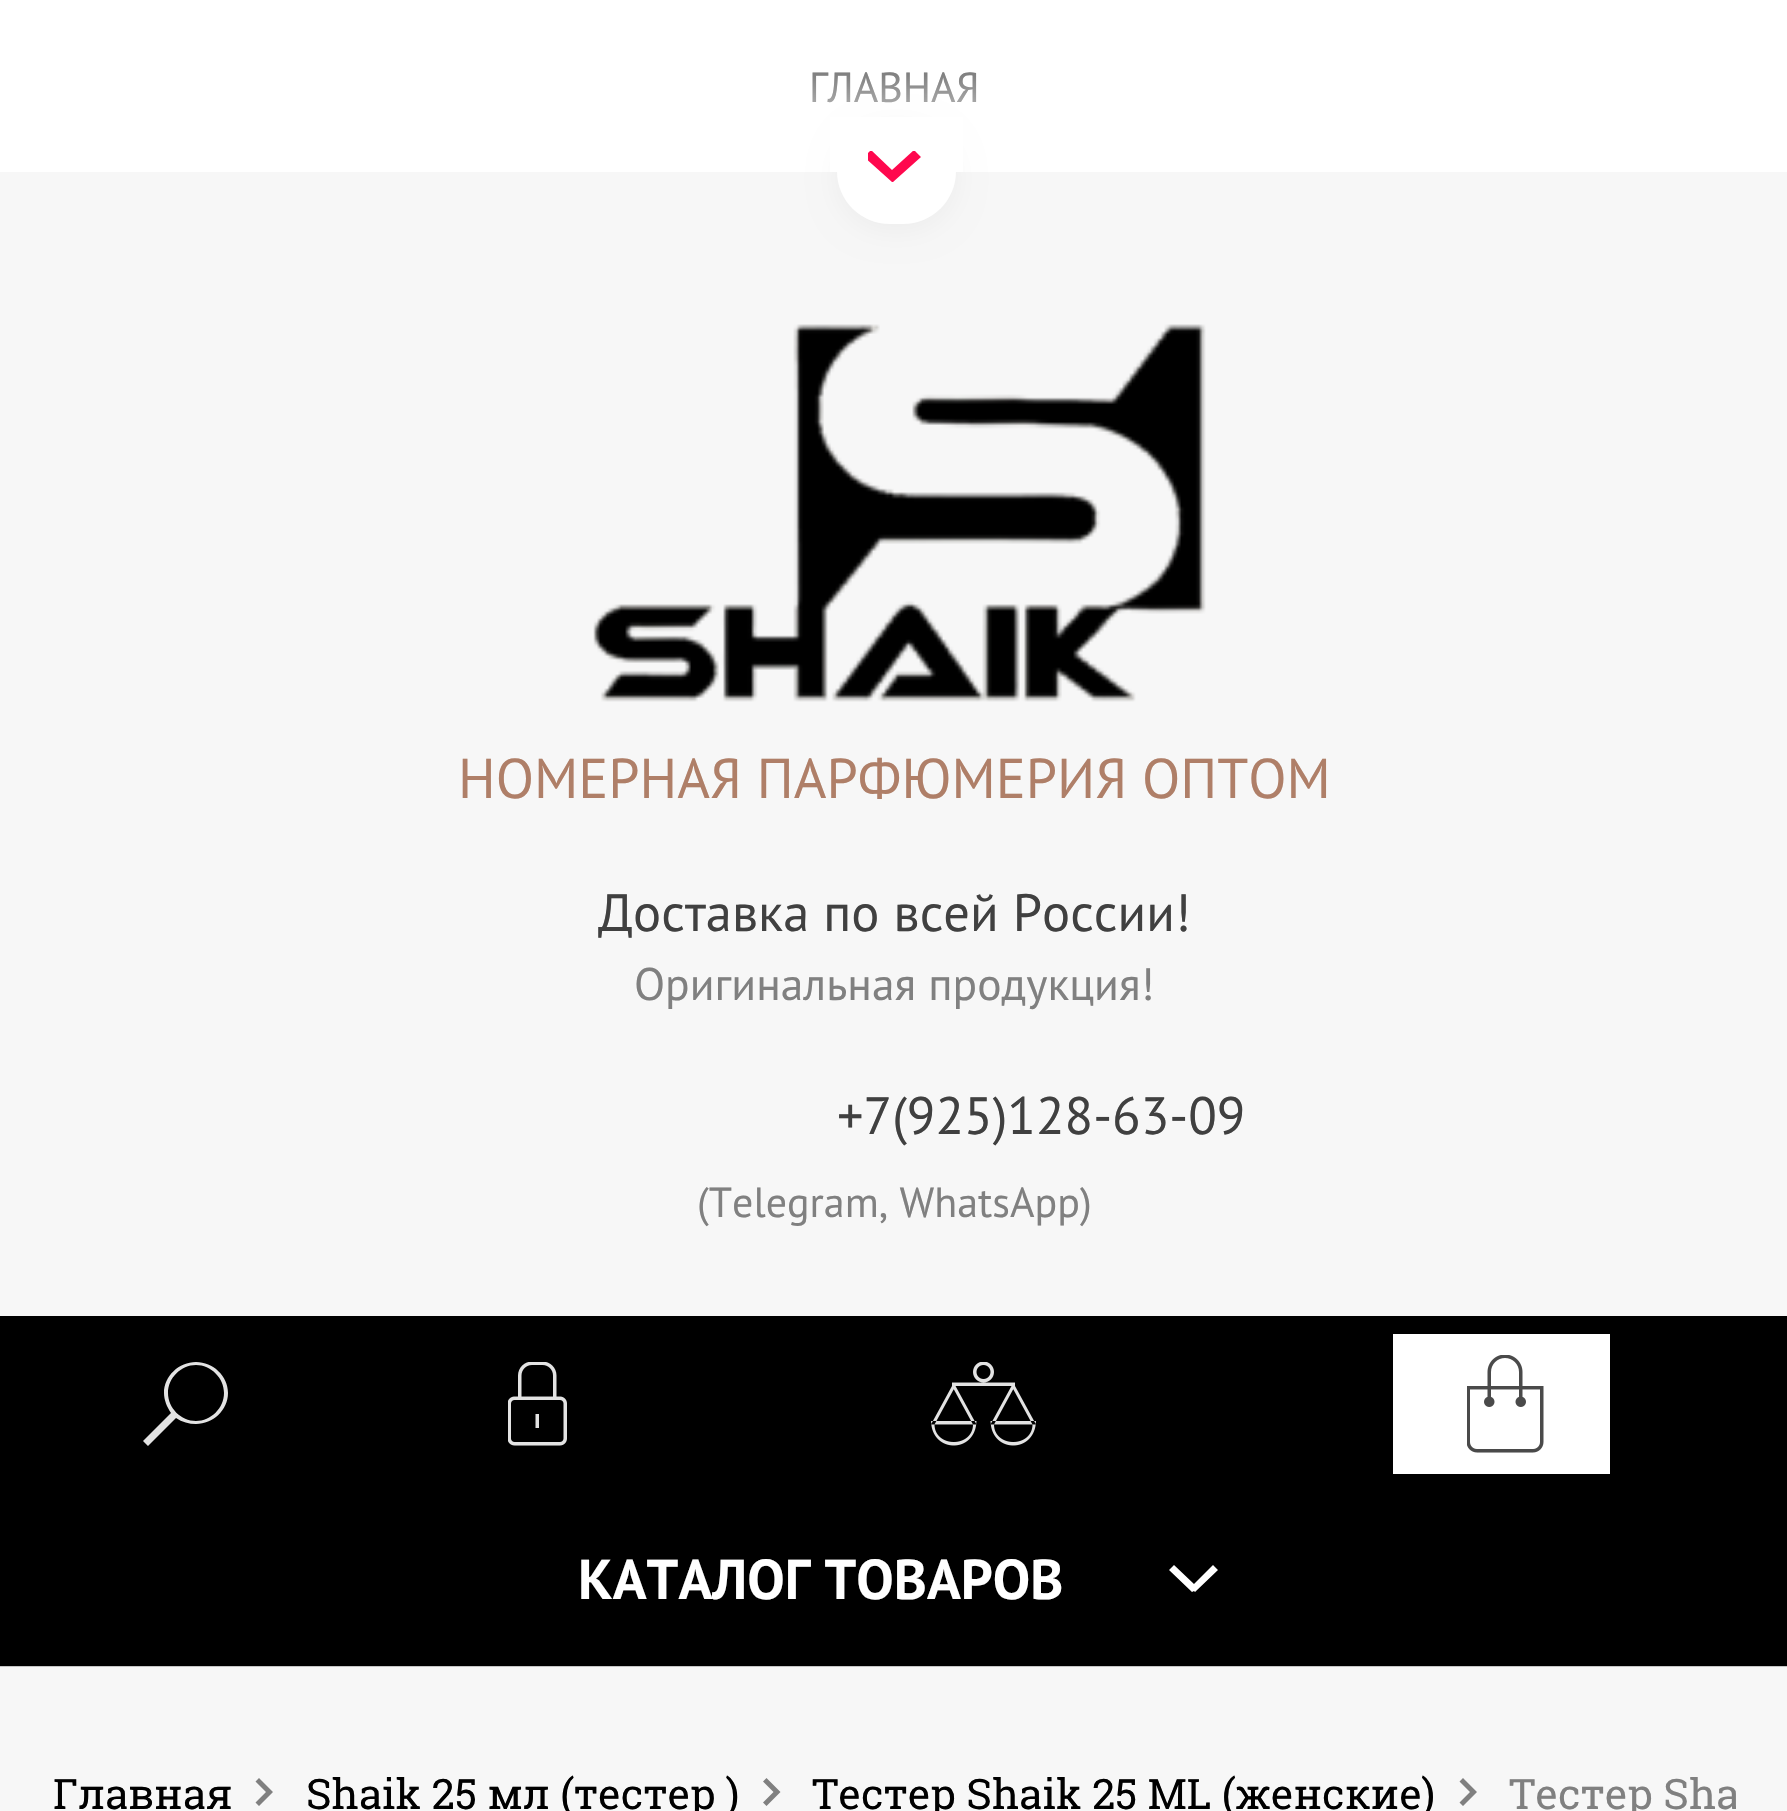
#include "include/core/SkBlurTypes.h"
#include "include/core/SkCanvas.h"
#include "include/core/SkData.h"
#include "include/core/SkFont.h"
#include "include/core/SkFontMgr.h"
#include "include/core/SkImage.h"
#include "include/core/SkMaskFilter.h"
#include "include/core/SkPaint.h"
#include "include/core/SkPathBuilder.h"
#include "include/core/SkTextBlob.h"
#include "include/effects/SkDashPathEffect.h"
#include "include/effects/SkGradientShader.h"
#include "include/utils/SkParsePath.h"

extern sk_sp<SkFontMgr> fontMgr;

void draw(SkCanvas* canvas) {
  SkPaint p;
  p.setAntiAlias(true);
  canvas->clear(SkColorSetRGB(247, 247, 247));
  p.setColor(SK_ColorWHITE);
  canvas->drawRect(SkRect::MakeLTRB(0, 0, 1787, 171), p);
  canvas->drawImageRect(SkImages::DeferredFromEncodedData(SkData::MakeFromFileName("images/1.png")), SkRect::MakeLTRB(593, 324, 1206, 702), SkSamplingOptions());
  p.setColor(SK_ColorBLACK);
  canvas->drawRect(SkRect::MakeLTRB(0, 1316, 1787, 1666), p);
  p.setColor(SkColorSetRGB(227, 227, 227));
  canvas->drawPath(SkPathBuilder(SkPathFillType::kEvenOdd).moveTo(196, 1424).cubicTo(189, 1424, 182, 1422, 176, 1418).lineTo(148, 1446).lineTo(143, 1441).lineTo(171, 1413).cubicTo(167, 1407, 164, 1400, 164, 1393).cubicTo(164, 1376, 179, 1362, 196, 1362).cubicTo(213, 1362, 228, 1376, 228, 1393).cubicTo(228, 1410, 213, 1424, 196, 1424).close().moveTo(196, 1365).cubicTo(181, 1365, 168, 1378, 168, 1393).cubicTo(168, 1408, 181, 1421, 196, 1421).cubicTo(211, 1421, 224, 1408, 224, 1393).cubicTo(224, 1378, 211, 1365, 196, 1365).close().detach(), p);
  canvas->drawImageRect(SkImages::DeferredFromEncodedData(SkData::MakeFromFileName("images/2.png")), SkRect::MakeLTRB(508, 1362, 567, 1446), SkSamplingOptions());
  canvas->drawImageRect(SkImages::DeferredFromEncodedData(SkData::MakeFromFileName("images/3.png")), SkRect::MakeLTRB(931, 1362, 1036, 1446), SkSamplingOptions());
  p.setColor(SK_ColorWHITE);
  canvas->drawRect(SkRect::MakeLTRB(1393, 1334, 1610, 1474), p);
  canvas->drawImageRect(SkImages::DeferredFromEncodedData(SkData::MakeFromFileName("images/4.png")), SkRect::MakeLTRB(1467, 1355, 1544, 1453), SkSamplingOptions());
  p.setColor(SkColorSetARGB(51, 0, 0, 0));
  canvas->drawRect(SkRect::MakeLTRB(0, 1666, 1787, 1667), p);
  p.setColor(SK_ColorWHITE);
  canvas->drawPath(SkPathBuilder(SkPathFillType::kEvenOdd).moveTo(1218, 1570).lineTo(1195, 1592).lineTo(1194, 1591).lineTo(1192, 1592).lineTo(1169, 1570).lineTo(1174, 1565).lineTo(1194, 1584).lineTo(1213, 1565).close().detach(), p);
  p.setColor(SkColorSetRGB(128, 128, 128));
  canvas->drawPath(SkPathBuilder(SkPathFillType::kEvenOdd).moveTo(259, 1806).lineTo(255.5f, 1802.5f).lineTo(266, 1792).lineTo(255.5f, 1781.5f).lineTo(259, 1778).lineTo(273, 1792).close().detach(), p);
  canvas->drawPath(SkPathBuilder(SkPathFillType::kEvenOdd).moveTo(766.5f, 1806).lineTo(763, 1802.5f).lineTo(773.5f, 1792).lineTo(763, 1781.5f).lineTo(766.5f, 1778).lineTo(780.5f, 1792).close().detach(), p);
  canvas->drawPath(SkPathBuilder(SkPathFillType::kEvenOdd).moveTo(1463, 1806).lineTo(1459.5f, 1802.5f).lineTo(1470, 1792).lineTo(1459.5f, 1781.5f).lineTo(1463, 1778).lineTo(1477, 1792).close().detach(), p);
  SkFont font1(fontMgr->matchFamilyStyle("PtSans", SkFontStyle::Normal()), 42);
  font1.setSubpixel(true);
  p.setColor(SkColorSetRGB(32, 32, 32));
  canvas->drawString("ГЛАВНАЯ", 809, 102, font1, p);
  {
    const SkColor colors[] = {SkColorSetARGB(0, 255, 255, 255), SK_ColorWHITE};
    const float stops[] = {0, 1};
    const SkPoint ends[] = {{894, 0}, {894, 172}};
    p.setShader(SkGradientShader::MakeLinear(ends, colors, stops, 2, SkTileMode::kClamp));
    p.setAlpha(255);
  }
  canvas->drawRect(SkRect::MakeLTRB(0, 72, 1787, 172), p);
  p.setShader(nullptr);
  p.setColor(SkColorSetARGB(10, 0, 0, 0));
  p.setMaskFilter(SkMaskFilter::MakeBlur(kNormal_SkBlurStyle, 14));
  canvas->drawRoundRect(SkRect::MakeLTRB(837, 126, 956, 231), 52.5f, 52.5f, p);
  p.setMaskFilter(nullptr);
  p.setColor(SK_ColorWHITE);
  canvas->drawRoundRect(SkRect::MakeLTRB(837, 119, 956, 224), 52.5f, 52.5f, p);
  canvas->drawRect(SkRect::MakeLTRB(830, 117, 963, 172), p);
  canvas->save();
  canvas->clipRect(SkRect::MakeLTRB(868, 151, 924, 182));
  p.setColor(SkColorSetRGB(255, 8, 78));
  canvas->drawPath(SkPathBuilder(SkPathFillType::kEvenOdd).moveTo(864, 157).lineTo(871, 150).lineTo(892, 170).lineTo(914, 150).lineTo(921, 157).lineTo(893, 182).lineTo(892, 182).close().detach(), p);
  canvas->restore();
  SkFont font2(fontMgr->matchFamilyStyle("PtSans", SkFontStyle::Normal()), 56);
  font2.setSubpixel(true);
  p.setColor(SkColorSetRGB(175, 127, 104));
  canvas->drawString("НОМЕРНАЯ ПАРФЮМЕРИЯ ОПТОМ", 458, 798, font2, p);
  SkFont font3(fontMgr->matchFamilyStyle("PtSans", SkFontStyle::Normal()), 52.5f);
  font3.setSubpixel(true);
  p.setColor(SkColorSetRGB(64, 64, 64));
  canvas->drawString("Доставка по всей России!", 598, 931, font3, p);
  SkFont font4(fontMgr->matchFamilyStyle("PtSans", SkFontStyle::Normal()), 45.5f);
  font4.setSubpixel(true);
  p.setColor(SkColorSetRGB(128, 128, 128));
  canvas->drawString("Оригинальная продукция!", 634, 1000, font4, p);
  p.setColor(SkColorSetRGB(64, 64, 64));
  canvas->drawString("+7(925)128-63-09", 837, 1134, font3, p);
  p.setColor(SkColorSetRGB(128, 128, 128));
  canvas->drawString("(Telegram, WhatsApp)", 697, 1217, font1, p);
  SkFont font5(fontMgr->matchFamilyStyle("PtSans", SkFontStyle::Bold()), 56);
  font5.setSubpixel(true);
  p.setColor(SK_ColorWHITE);
  canvas->drawString("КАТАЛОГ ТОВАРОВ", 578, 1599, font5, p);
  SkFont font6(fontMgr->matchFamilyStyle("Roboto Slab", SkFontStyle::Normal()), 42);
  font6.setSubpixel(true);
  p.setColor(SK_ColorBLACK);
  canvas->drawString("Главная", 53, 1809, font6, p);
  canvas->drawString("Shaik 25 мл (тестер )", 306, 1809, font6, p);
  canvas->drawString("Тестер Shaik 25 ML (женские)", 812, 1809, font6, p);
  canvas->save();
  canvas->clipRect(SkRect::MakeLTRB(53, 1771, 1736, 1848));
  p.setColor(SkColorSetRGB(128, 128, 128));
  canvas->drawString("Тестер Sha", 1509, 1809, font6, p);
  canvas->restore();
}
